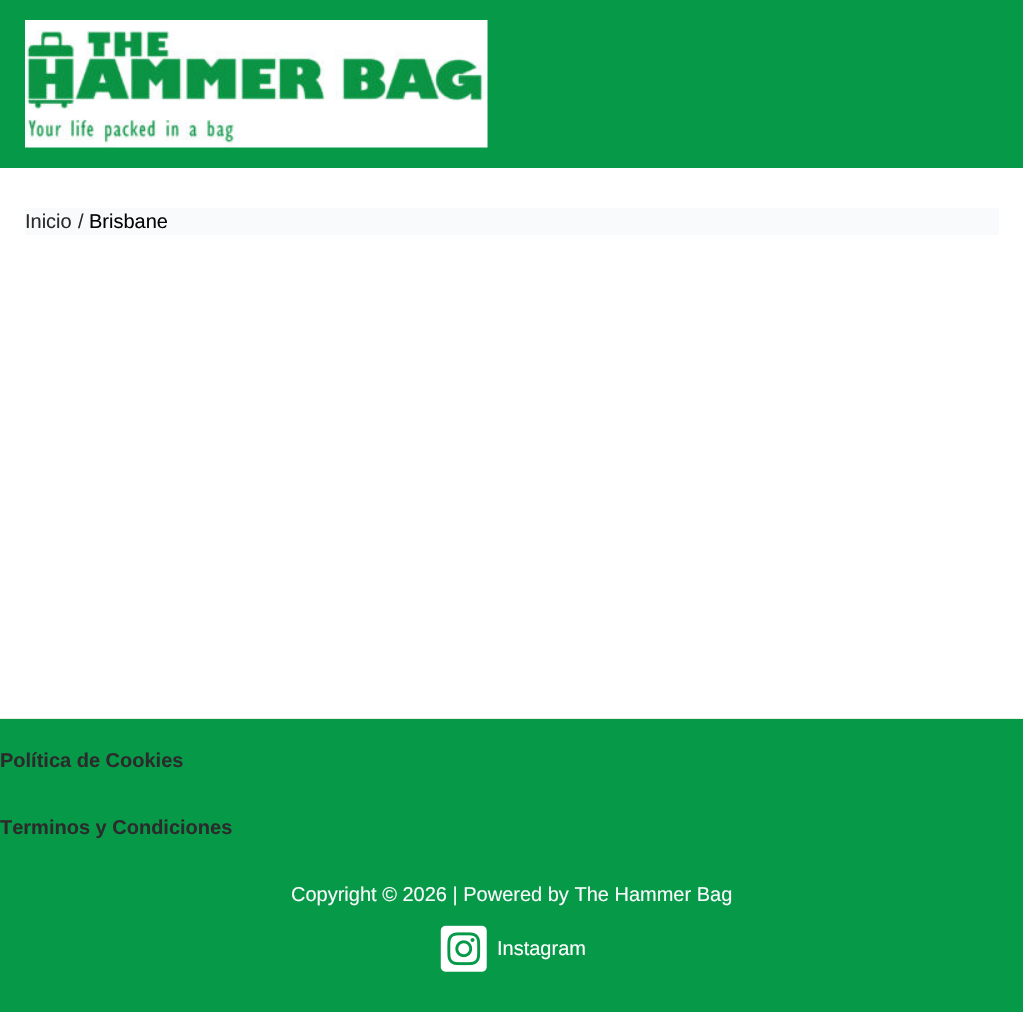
#include "include/core/SkBlurTypes.h"
#include "include/core/SkCanvas.h"
#include "include/core/SkData.h"
#include "include/core/SkFont.h"
#include "include/core/SkFontMgr.h"
#include "include/core/SkImage.h"
#include "include/core/SkMaskFilter.h"
#include "include/core/SkPaint.h"
#include "include/core/SkPathBuilder.h"
#include "include/core/SkTextBlob.h"
#include "include/effects/SkDashPathEffect.h"
#include "include/effects/SkGradientShader.h"
#include "include/utils/SkParsePath.h"

extern sk_sp<SkFontMgr> fontMgr;

void draw(SkCanvas* canvas) {
  SkPaint p;
  p.setAntiAlias(true);
  canvas->clear(SK_ColorWHITE);
  p.setColor(SkColorSetRGB(5, 153, 72));
  canvas->drawRect(SkRect::MakeLTRB(0, 0, 1023, 168), p);
  canvas->drawImageRect(SkImages::DeferredFromEncodedData(SkData::MakeFromFileName("images/1.png")), SkRect::MakeLTRB(25, 20, 488, 148), SkSamplingOptions());
  p.setColor(SkColorSetRGB(249, 250, 251));
  canvas->drawRect(SkRect::MakeLTRB(25, 208, 999, 235), p);
  p.setColor(SkColorSetRGB(5, 153, 72));
  canvas->drawRect(SkRect::MakeLTRB(0, 719, 1023, 1012), p);
  p.setColor(SkColorSetRGB(234, 237, 228));
  canvas->drawRect(SkRect::MakeLTRB(0, 718, 1023, 719), p);
  canvas->drawImageRect(SkImages::DeferredFromEncodedData(SkData::MakeFromFileName("images/2.png")), SkRect::MakeLTRB(440, 925, 487, 972), SkSamplingOptions());
  SkFont font1(fontMgr->matchFamilyStyle("Liberation Sans", SkFontStyle::Normal()), 20);
  font1.setSubpixel(true);
  p.setColor(SkColorSetRGB(43, 43, 43));
  canvas->drawString("Inicio", 25, 228, font1, p);
  canvas->drawString("/", 78, 228, font1, p);
  p.setColor(SkColorSetRGB(6, 6, 6));
  canvas->drawString("Brisbane", 89, 228, font1, p);
  SkFont font2(fontMgr->matchFamilyStyle("Liberation Sans", SkFontStyle::Bold()), 20);
  font2.setSubpixel(true);
  p.setColor(SkColorSetRGB(43, 43, 43));
  canvas->drawString("Política de Cookies", 0, 767, font2, p);
  canvas->drawString("Terminos y Condiciones", 0, 834, font2, p);
  p.setColor(SkColorSetRGB(249, 250, 251));
  canvas->drawString("Copyright © 2026 | Powered by The Hammer Bag", 291, 901, font1, p);
  p.setColor(SK_ColorWHITE);
  canvas->drawString("Instagram", 497, 955, font1, p);
}
